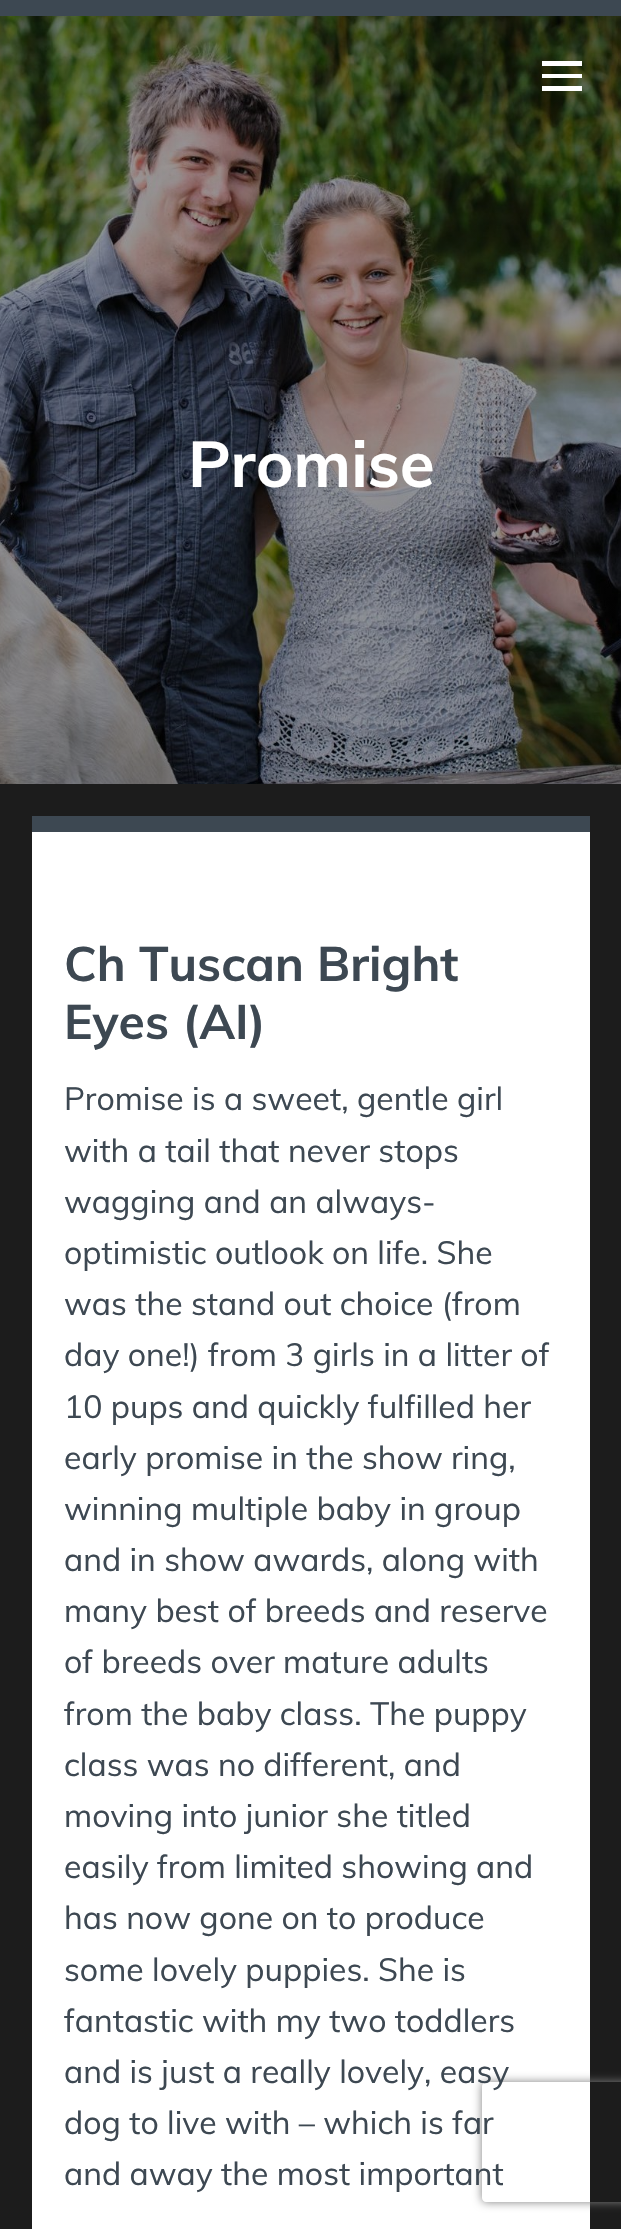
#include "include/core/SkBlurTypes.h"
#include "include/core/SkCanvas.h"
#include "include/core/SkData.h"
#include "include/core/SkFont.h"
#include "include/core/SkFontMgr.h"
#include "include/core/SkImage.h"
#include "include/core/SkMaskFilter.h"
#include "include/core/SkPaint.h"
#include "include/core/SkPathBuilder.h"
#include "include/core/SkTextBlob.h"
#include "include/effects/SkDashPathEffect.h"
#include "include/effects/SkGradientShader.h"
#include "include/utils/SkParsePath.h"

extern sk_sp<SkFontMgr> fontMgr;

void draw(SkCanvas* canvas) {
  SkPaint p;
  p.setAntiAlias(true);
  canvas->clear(SkColorSetRGB(28, 28, 28));
  canvas->drawImageRect(SkImages::DeferredFromEncodedData(SkData::MakeFromFileName("images/1.png")), SkRect::MakeLTRB(0, 16, 621, 784), SkSamplingOptions());
  p.setColor(SkColorSetRGB(61, 72, 82));
  canvas->drawRect(SkRect::MakeLTRB(0, 0, 621, 16), p);
  p.setColor(SK_ColorWHITE);
  canvas->drawPath(SkPathBuilder().moveTo(542, 91).lineTo(582, 91).lineTo(582, 86).lineTo(542, 86).close().moveTo(542, 61).lineTo(542, 66).lineTo(582, 66).lineTo(582, 61).close().moveTo(542, 78).lineTo(582, 78).lineTo(582, 74).lineTo(542, 74).close().detach(), p);
  canvas->drawRect(SkRect::MakeLTRB(32, 832, 590, 2229), p);
  p.setColor(SkColorSetRGB(61, 72, 82));
  canvas->drawRect(SkRect::MakeLTRB(32, 816, 590, 832), p);
  canvas->save();
  canvas->clipPath(SkPathBuilder(SkPathFillType::kEvenOdd).moveTo(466, 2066).lineTo(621, 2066).lineTo(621, 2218).lineTo(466, 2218).close().moveTo(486, 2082).lineTo(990, 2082).cubicTo(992, 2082, 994, 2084, 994, 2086).lineTo(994, 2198).cubicTo(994, 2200, 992, 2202, 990, 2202).lineTo(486, 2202).cubicTo(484, 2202, 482, 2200, 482, 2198).lineTo(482, 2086).cubicTo(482, 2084, 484, 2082, 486, 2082).close().detach(), true);
  p.setColor(SkColorSetRGB(128, 128, 128));
  p.setMaskFilter(SkMaskFilter::MakeBlur(kNormal_SkBlurStyle, 5));
  canvas->drawRoundRect(SkRect::MakeLTRB(482, 2082, 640, 2202), 4, 4, p);
  p.setMaskFilter(nullptr);
  canvas->restore();
  SkFont font1(fontMgr->matchFamilyStyle("Muli", SkFontStyle::Bold()), 64);
  font1.setSubpixel(true);
  p.setColor(SK_ColorWHITE);
  canvas->drawString("Promise", 188, 487, font1, p);
  SkFont font2(fontMgr->matchFamilyStyle("Muli", SkFontStyle::Bold()), 48);
  font2.setSubpixel(true);
  p.setColor(SkColorSetRGB(61, 72, 82));
  canvas->drawString("Ch Tuscan Bright", 64, 981, font2, p);
  canvas->drawString("Eyes (AI)", 64, 1039, font2, p);
  SkFont font3(fontMgr->matchFamilyStyle("Muli", SkFontStyle::Normal()), 32);
  font3.setSubpixel(true);
  canvas->drawString("Promise is a sweet, gentle girl", 64, 1110, font3, p);
  canvas->drawString("with a tail that never stops", 64, 1162, font3, p);
  canvas->drawString("wagging and an always-", 64, 1213, font3, p);
  canvas->drawString("optimistic outlook on life. She", 64, 1264, font3, p);
  canvas->drawString("was the stand out choice (from", 64, 1315, font3, p);
  canvas->drawString("day one!) from 3 girls in a litter of", 64, 1366, font3, p);
  canvas->drawString("10 pups and quickly fulfilled her", 64, 1418, font3, p);
  canvas->drawString("early promise in the show ring,", 64, 1469, font3, p);
  canvas->drawString("winning multiple baby in group", 64, 1520, font3, p);
  canvas->drawString("and in show awards, along with", 64, 1571, font3, p);
  canvas->drawString("many best of breeds and reserve", 64, 1622, font3, p);
  canvas->drawString("of breeds over mature adults", 64, 1673, font3, p);
  canvas->drawString("from the baby class. The puppy", 64, 1725, font3, p);
  canvas->drawString("class was no different, and", 64, 1776, font3, p);
  canvas->drawString("moving into junior she titled", 64, 1827, font3, p);
  canvas->drawString("easily from limited showing and", 64, 1878, font3, p);
  canvas->drawString("has now gone on to produce", 64, 1929, font3, p);
  canvas->drawString("some lovely puppies. She is", 64, 1981, font3, p);
  canvas->drawString("fantastic with my two toddlers", 64, 2032, font3, p);
  canvas->drawString("and is just a really lovely, easy", 64, 2083, font3, p);
  canvas->drawString("dog to live with – which is far", 64, 2134, font3, p);
  canvas->drawString("and away the most important", 64, 2185, font3, p);
}
